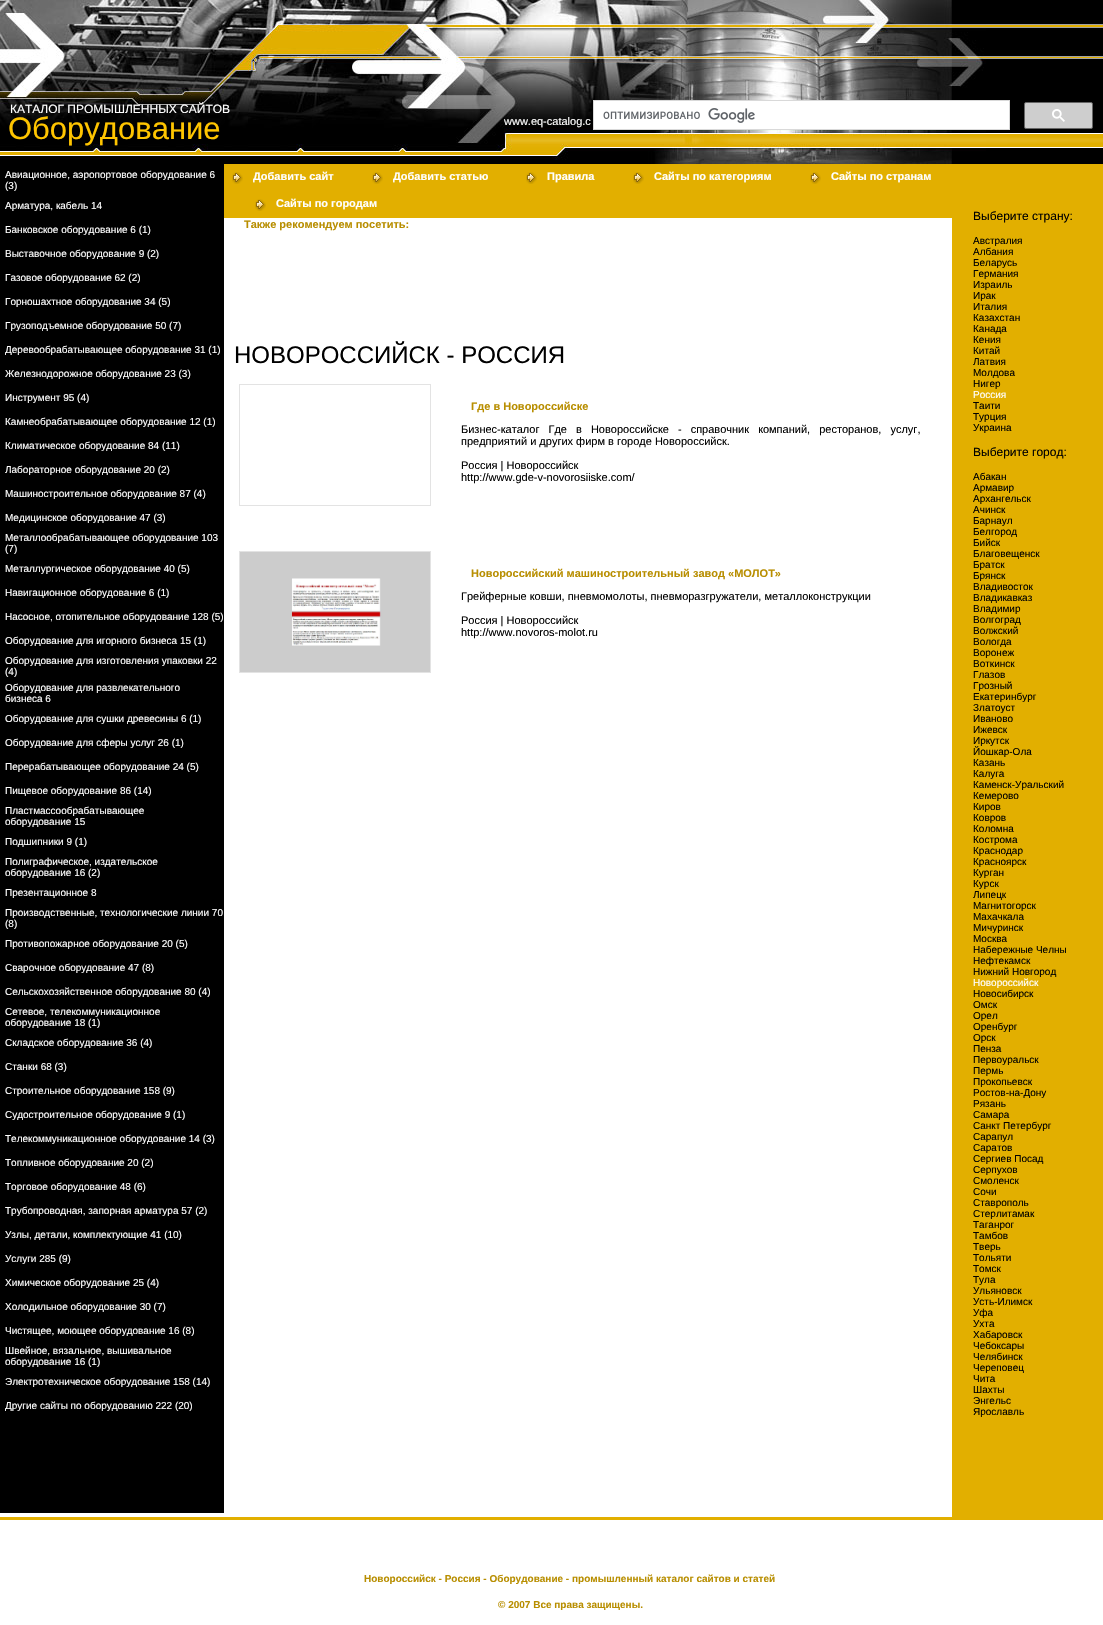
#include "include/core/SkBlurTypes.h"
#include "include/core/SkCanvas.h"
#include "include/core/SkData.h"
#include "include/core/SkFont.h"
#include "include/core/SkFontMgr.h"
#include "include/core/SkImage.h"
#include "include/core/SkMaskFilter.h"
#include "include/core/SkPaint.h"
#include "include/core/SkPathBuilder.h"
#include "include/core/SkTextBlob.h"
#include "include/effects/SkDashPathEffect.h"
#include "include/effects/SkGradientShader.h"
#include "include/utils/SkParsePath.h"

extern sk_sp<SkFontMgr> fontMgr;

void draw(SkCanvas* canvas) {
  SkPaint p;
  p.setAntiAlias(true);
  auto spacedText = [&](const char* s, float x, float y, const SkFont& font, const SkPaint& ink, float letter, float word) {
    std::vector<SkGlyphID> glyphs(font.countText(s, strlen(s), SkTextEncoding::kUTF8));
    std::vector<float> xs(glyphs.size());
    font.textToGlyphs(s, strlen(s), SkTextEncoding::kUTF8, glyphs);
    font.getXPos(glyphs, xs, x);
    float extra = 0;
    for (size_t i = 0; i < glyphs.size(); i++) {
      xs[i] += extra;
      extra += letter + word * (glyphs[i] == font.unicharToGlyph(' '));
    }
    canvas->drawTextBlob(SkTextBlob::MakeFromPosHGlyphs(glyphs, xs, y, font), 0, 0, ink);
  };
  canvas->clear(SK_ColorBLACK);
  canvas->drawImageRect(SkImages::DeferredFromEncodedData(SkData::MakeFromFileName("images/1.png")), SkRect::MakeLTRB(0, 0, 986, 164), SkSamplingOptions());
  canvas->drawImageRect(SkImages::DeferredFromEncodedData(SkData::MakeFromFileName("images/2.png")), SkRect::MakeLTRB(986, 0, 1103, 164), SkSamplingOptions());
  p.setColor(SK_ColorWHITE);
  canvas->drawRect(SkRect::MakeLTRB(593.5f, 100.5f, 1009.5f, 129.5f), p);
  p.setStyle(SkPaint::kStroke_Style);
  p.setStrokeWidth(1);
  p.setColor(SkColorSetRGB(217, 217, 217));
  canvas->drawRect(SkRect::MakeLTRB(593.5f, 100.5f, 1009.5f, 129.5f), p);
  canvas->drawImageRect(SkImages::DeferredFromEncodedData(SkData::MakeFromFileName("images/3.png")), SkRect::MakeLTRB(603, 108, 755, 123), SkSamplingOptions());
  p.setStyle(SkPaint::kFill_Style);
  p.setColor(SkColorSetRGB(206, 206, 206));
  canvas->drawRoundRect(SkRect::MakeLTRB(1024.5f, 102.5f, 1092.5f, 128.5f), 1.5f, 1.5f, p);
  p.setStyle(SkPaint::kStroke_Style);
  p.setColor(SkColorSetRGB(102, 102, 102));
  canvas->drawRoundRect(SkRect::MakeLTRB(1024.5f, 102.5f, 1092.5f, 128.5f), 1.5f, 1.5f, p);
  canvas->drawImageRect(SkImages::DeferredFromEncodedData(SkData::MakeFromFileName("images/4.png")), SkRect::MakeLTRB(1052, 109, 1065, 122), SkSamplingOptions());
  p.setStyle(SkPaint::kFill_Style);
  p.setColor(SK_ColorWHITE);
  canvas->drawRect(SkRect::MakeLTRB(0, 1513, 224, 1517), p);
  canvas->drawRect(SkRect::MakeLTRB(224, 218, 952, 1517), p);
  p.setColor(SkColorSetRGB(226, 175, 0));
  canvas->drawRect(SkRect::MakeLTRB(224, 164, 952, 218), p);
  canvas->drawImageRect(SkImages::DeferredFromEncodedData(SkData::MakeFromFileName("images/5.png")), SkRect::MakeLTRB(232, 172, 243, 184), SkSamplingOptions());
  canvas->drawImageRect(SkImages::DeferredFromEncodedData(SkData::MakeFromFileName("images/5.png")), SkRect::MakeLTRB(372, 172, 383, 184), SkSamplingOptions());
  canvas->drawImageRect(SkImages::DeferredFromEncodedData(SkData::MakeFromFileName("images/5.png")), SkRect::MakeLTRB(526, 172, 537, 184), SkSamplingOptions());
  canvas->drawImageRect(SkImages::DeferredFromEncodedData(SkData::MakeFromFileName("images/5.png")), SkRect::MakeLTRB(633, 172, 644, 184), SkSamplingOptions());
  canvas->drawImageRect(SkImages::DeferredFromEncodedData(SkData::MakeFromFileName("images/5.png")), SkRect::MakeLTRB(810, 172, 821, 184), SkSamplingOptions());
  canvas->drawImageRect(SkImages::DeferredFromEncodedData(SkData::MakeFromFileName("images/5.png")), SkRect::MakeLTRB(255, 199, 266, 211), SkSamplingOptions());
  p.setStyle(SkPaint::kStroke_Style);
  p.setColor(SkColorSetRGB(227, 227, 227));
  canvas->drawRect(SkRect::MakeLTRB(239.5f, 384.5f, 430.5f, 505.5f), p);
  canvas->drawRect(SkRect::MakeLTRB(239.5f, 551.5f, 430.5f, 672.5f), p);
  canvas->drawImageRect(SkImages::DeferredFromEncodedData(SkData::MakeFromFileName("images/6.png")), SkRect::MakeLTRB(240, 552, 430, 672), SkSamplingOptions());
  p.setStyle(SkPaint::kFill_Style);
  p.setColor(SkColorSetRGB(226, 175, 0));
  canvas->drawRect(SkRect::MakeLTRB(952, 164, 1103, 1517), p);
  canvas->drawRect(SkRect::MakeLTRB(0, 1517, 1103, 1520), p);
  p.setColor(SK_ColorWHITE);
  canvas->drawRect(SkRect::MakeLTRB(0, 1520, 1103, 1625), p);
  SkFont font1(fontMgr->matchFamilyStyle("Liberation Sans", SkFontStyle::Normal()), 12);
  font1.setSubpixel(true);
  canvas->drawString("КАТАЛОГ ПРОМЫШЛЕННЫХ САЙТОВ", 10, 113, font1, p);
  SkFont font2(fontMgr->matchFamilyStyle("Liberation Sans", SkFontStyle::Normal()), 31);
  font2.setSubpixel(true);
  p.setColor(SkColorSetRGB(255, 197, 0));
  canvas->drawString("Оборудование", 8, 139, font2, p);
  SkFont font3(fontMgr->matchFamilyStyle("Liberation Sans", SkFontStyle::Normal()), 11);
  font3.setSubpixel(true);
  p.setColor(SK_ColorWHITE);
  canvas->drawString("www.eq-catalog.c", 504, 125, font3, p);
  SkFont font4(fontMgr->matchFamilyStyle("Liberation Sans", SkFontStyle::Normal()), 10);
  font4.setSubpixel(true);
  canvas->drawString("Авиационное, аэропортовое оборудование 6", 5, 178, font4, p);
  canvas->drawString("(3)", 5, 189, font4, p);
  canvas->drawString("Арматура, кабель 14", 5, 209, font4, p);
  canvas->drawString("Банковское оборудование 6 (1)", 5, 233, font4, p);
  canvas->drawString("Выставочное оборудование 9 (2)", 5, 257, font4, p);
  canvas->drawString("Газовое оборудование 62 (2)", 5, 281, font4, p);
  canvas->drawString("Горношахтное оборудование 34 (5)", 5, 305, font4, p);
  canvas->drawString("Грузоподъемное оборудование 50 (7)", 5, 329, font4, p);
  canvas->drawString("Деревообрабатывающее оборудование 31 (1)", 5, 353, font4, p);
  canvas->drawString("Железнодорожное оборудование 23 (3)", 5, 377, font4, p);
  canvas->drawString("Инструмент 95 (4)", 5, 401, font4, p);
  canvas->drawString("Камнеобрабатывающее оборудование 12 (1)", 5, 425, font4, p);
  canvas->drawString("Климатическое оборудование 84 (11)", 5, 449, font4, p);
  canvas->drawString("Лабораторное оборудование 20 (2)", 5, 473, font4, p);
  canvas->drawString("Машиностроительное оборудование 87 (4)", 5, 497, font4, p);
  canvas->drawString("Медицинское оборудование 47 (3)", 5, 521, font4, p);
  canvas->drawString("Металлообрабатывающее оборудование 103", 5, 541, font4, p);
  canvas->drawString("(7)", 5, 552, font4, p);
  canvas->drawString("Металлургическое оборудование 40 (5)", 5, 572, font4, p);
  canvas->drawString("Навигационное оборудование 6 (1)", 5, 596, font4, p);
  canvas->drawString("Насосное, отопительное оборудование 128 (5)", 5, 620, font4, p);
  canvas->drawString("Оборудование для игорного бизнеса 15 (1)", 5, 644, font4, p);
  canvas->drawString("Оборудование для изготовления упаковки 22", 5, 664, font4, p);
  canvas->drawString("(4)", 5, 675, font4, p);
  canvas->drawString("Оборудование для развлекательного", 5, 691, font4, p);
  canvas->drawString("бизнеса 6", 5, 702, font4, p);
  canvas->drawString("Оборудование для сушки древесины 6 (1)", 5, 722, font4, p);
  canvas->drawString("Оборудование для сферы услуг 26 (1)", 5, 746, font4, p);
  canvas->drawString("Перерабатывающее оборудование 24 (5)", 5, 770, font4, p);
  canvas->drawString("Пищевое оборудование 86 (14)", 5, 794, font4, p);
  canvas->drawString("Пластмассообрабатывающее", 5, 814, font4, p);
  canvas->drawString("оборудование 15", 5, 825, font4, p);
  canvas->drawString("Подшипники 9 (1)", 5, 845, font4, p);
  canvas->drawString("Полиграфическое, издательское", 5, 865, font4, p);
  canvas->drawString("оборудование 16 (2)", 5, 876, font4, p);
  canvas->drawString("Презентационное 8", 5, 896, font4, p);
  canvas->drawString("Производственные, технологические линии 70", 5, 916, font4, p);
  canvas->drawString("(8)", 5, 927, font4, p);
  canvas->drawString("Противопожарное оборудование 20 (5)", 5, 947, font4, p);
  canvas->drawString("Сварочное оборудование 47 (8)", 5, 971, font4, p);
  canvas->drawString("Сельскохозяйственное оборудование 80 (4)", 5, 995, font4, p);
  canvas->drawString("Сетевое, телекоммуникационное", 5, 1015, font4, p);
  canvas->drawString("оборудование 18 (1)", 5, 1026, font4, p);
  canvas->drawString("Складское оборудование 36 (4)", 5, 1046, font4, p);
  canvas->drawString("Станки 68 (3)", 5, 1070, font4, p);
  canvas->drawString("Строительное оборудование 158 (9)", 5, 1094, font4, p);
  canvas->drawString("Судостроительное оборудование 9 (1)", 5, 1118, font4, p);
  canvas->drawString("Телекоммуникационное оборудование 14 (3)", 5, 1142, font4, p);
  canvas->drawString("Топливное оборудование 20 (2)", 5, 1166, font4, p);
  canvas->drawString("Торговое оборудование 48 (6)", 5, 1190, font4, p);
  canvas->drawString("Трубопроводная, запорная арматура 57 (2)", 5, 1214, font4, p);
  canvas->drawString("Узлы, детали, комплектующие 41 (10)", 5, 1238, font4, p);
  canvas->drawString("Услуги 285 (9)", 5, 1262, font4, p);
  canvas->drawString("Химическое оборудование 25 (4)", 5, 1286, font4, p);
  canvas->drawString("Холодильное оборудование 30 (7)", 5, 1310, font4, p);
  canvas->drawString("Чистящее, моющее оборудование 16 (8)", 5, 1334, font4, p);
  canvas->drawString("Швейное, вязальное, вышивальное", 5, 1354, font4, p);
  canvas->drawString("оборудование 16 (1)", 5, 1365, font4, p);
  canvas->drawString("Электротехническое оборудование 158 (14)", 5, 1385, font4, p);
  canvas->drawString("Другие сайты по оборудованию 222 (20)", 5, 1409, font4, p);
  SkFont font5(fontMgr->matchFamilyStyle("Liberation Sans", SkFontStyle::Bold()), 11);
  font5.setSubpixel(true);
  canvas->drawString("Добавить сайт", 253, 180, font5, p);
  canvas->drawString("Добавить статью", 393, 180, font5, p);
  canvas->drawString("Правила", 547, 180, font5, p);
  canvas->drawString("Сайты по категориям", 654, 180, font5, p);
  canvas->drawString("Сайты по странам", 831, 180, font5, p);
  canvas->drawString("Сайты по городам", 276, 207, font5, p);
  p.setColor(SkColorSetRGB(184, 142, 0));
  canvas->drawString("Также рекомендуем посетить:", 244, 228, font5, p);
  SkFont font6(fontMgr->matchFamilyStyle("Liberation Sans", SkFontStyle::Normal()), 24);
  font6.setSubpixel(true);
  p.setColor(SK_ColorBLACK);
  canvas->drawString("НОВОРОССИЙСК - РОССИЯ", 234, 363, font6, p);
  p.setColor(SkColorSetRGB(184, 142, 0));
  canvas->drawString("Где в Новороссийске", 471, 410, font5, p);
  p.setColor(SK_ColorBLACK);
  spacedText("Бизнес-каталог Где в Новороссийске - справочник компаний, ресторанов, услуг,", 461, 433, font3, p, 0, 6);
  canvas->drawString("предприятий и других фирм в городе Новороссийск.", 461, 445, font3, p);
  canvas->drawString("Россия | Новороссийск", 461, 469, font3, p);
  canvas->drawString("http://www.gde-v-novorosiiske.com/", 461, 481, font3, p);
  p.setColor(SkColorSetRGB(184, 142, 0));
  canvas->drawString("Новороссийский машиностроительный завод «МОЛОТ»", 471, 577, font5, p);
  p.setColor(SK_ColorBLACK);
  canvas->drawString("Грейферные ковши, пневмомолоты, пневморазгружатели, металлоконструкции", 461, 600, font3, p);
  canvas->drawString("Россия | Новороссийск", 461, 624, font3, p);
  canvas->drawString("http://www.novoros-molot.ru", 461, 636, font3, p);
  canvas->drawString("Выберите страну:", 973, 220, font1, p);
  canvas->drawString("Австралия", 973, 244, font4, p);
  canvas->drawString("Албания", 973, 255, font4, p);
  canvas->drawString("Беларусь", 973, 266, font4, p);
  canvas->drawString("Германия", 973, 277, font4, p);
  canvas->drawString("Израиль", 973, 288, font4, p);
  canvas->drawString("Ирак", 973, 299, font4, p);
  canvas->drawString("Италия", 973, 310, font4, p);
  canvas->drawString("Казахстан", 973, 321, font4, p);
  canvas->drawString("Канада", 973, 332, font4, p);
  canvas->drawString("Кения", 973, 343, font4, p);
  canvas->drawString("Китай", 973, 354, font4, p);
  canvas->drawString("Латвия", 973, 365, font4, p);
  canvas->drawString("Молдова", 973, 376, font4, p);
  canvas->drawString("Нигер", 973, 387, font4, p);
  p.setColor(SK_ColorWHITE);
  canvas->drawString("Россия", 973, 398, font4, p);
  p.setColor(SK_ColorBLACK);
  canvas->drawString("Таити", 973, 409, font4, p);
  canvas->drawString("Турция", 973, 420, font4, p);
  canvas->drawString("Украина", 973, 431, font4, p);
  canvas->drawString("Выберите город:", 973, 456, font1, p);
  canvas->drawString("Абакан", 973, 480, font4, p);
  canvas->drawString("Армавир", 973, 491, font4, p);
  canvas->drawString("Архангельск", 973, 502, font4, p);
  canvas->drawString("Ачинск", 973, 513, font4, p);
  canvas->drawString("Барнаул", 973, 524, font4, p);
  canvas->drawString("Белгород", 973, 535, font4, p);
  canvas->drawString("Бийск", 973, 546, font4, p);
  canvas->drawString("Благовещенск", 973, 557, font4, p);
  canvas->drawString("Братск", 973, 568, font4, p);
  canvas->drawString("Брянск", 973, 579, font4, p);
  canvas->drawString("Владивосток", 973, 590, font4, p);
  canvas->drawString("Владикавказ", 973, 601, font4, p);
  canvas->drawString("Владимир", 973, 612, font4, p);
  canvas->drawString("Волгоград", 973, 623, font4, p);
  canvas->drawString("Волжский", 973, 634, font4, p);
  canvas->drawString("Вологда", 973, 645, font4, p);
  canvas->drawString("Воронеж", 973, 656, font4, p);
  canvas->drawString("Воткинск", 973, 667, font4, p);
  canvas->drawString("Глазов", 973, 678, font4, p);
  canvas->drawString("Грозный", 973, 689, font4, p);
  canvas->drawString("Екатеринбург", 973, 700, font4, p);
  canvas->drawString("Златоуст", 973, 711, font4, p);
  canvas->drawString("Иваново", 973, 722, font4, p);
  canvas->drawString("Ижевск", 973, 733, font4, p);
  canvas->drawString("Иркутск", 973, 744, font4, p);
  canvas->drawString("Йошкар-Ола", 973, 755, font4, p);
  canvas->drawString("Казань", 973, 766, font4, p);
  canvas->drawString("Калуга", 973, 777, font4, p);
  canvas->drawString("Каменск-Уральский", 973, 788, font4, p);
  canvas->drawString("Кемерово", 973, 799, font4, p);
  canvas->drawString("Киров", 973, 810, font4, p);
  canvas->drawString("Ковров", 973, 821, font4, p);
  canvas->drawString("Коломна", 973, 832, font4, p);
  canvas->drawString("Кострома", 973, 843, font4, p);
  canvas->drawString("Краснодар", 973, 854, font4, p);
  canvas->drawString("Красноярск", 973, 865, font4, p);
  canvas->drawString("Курган", 973, 876, font4, p);
  canvas->drawString("Курск", 973, 887, font4, p);
  canvas->drawString("Липецк", 973, 898, font4, p);
  canvas->drawString("Магнитогорск", 973, 909, font4, p);
  canvas->drawString("Махачкала", 973, 920, font4, p);
  canvas->drawString("Мичуринск", 973, 931, font4, p);
  canvas->drawString("Москва", 973, 942, font4, p);
  canvas->drawString("Набережные Челны", 973, 953, font4, p);
  canvas->drawString("Нефтекамск", 973, 964, font4, p);
  canvas->drawString("Нижний Новгород", 973, 975, font4, p);
  p.setColor(SK_ColorWHITE);
  canvas->drawString("Новороссийск", 973, 986, font4, p);
  p.setColor(SK_ColorBLACK);
  canvas->drawString("Новосибирск", 973, 997, font4, p);
  canvas->drawString("Омск", 973, 1008, font4, p);
  canvas->drawString("Орел", 973, 1019, font4, p);
  canvas->drawString("Оренбург", 973, 1030, font4, p);
  canvas->drawString("Орск", 973, 1041, font4, p);
  canvas->drawString("Пенза", 973, 1052, font4, p);
  canvas->drawString("Первоуральск", 973, 1063, font4, p);
  canvas->drawString("Пермь", 973, 1074, font4, p);
  canvas->drawString("Прокопьевск", 973, 1085, font4, p);
  canvas->drawString("Ростов-на-Дону", 973, 1096, font4, p);
  canvas->drawString("Рязань", 973, 1107, font4, p);
  canvas->drawString("Самара", 973, 1118, font4, p);
  canvas->drawString("Санкт Петербург", 973, 1129, font4, p);
  canvas->drawString("Сарапул", 973, 1140, font4, p);
  canvas->drawString("Саратов", 973, 1151, font4, p);
  canvas->drawString("Сергиев Посад", 973, 1162, font4, p);
  canvas->drawString("Серпухов", 973, 1173, font4, p);
  canvas->drawString("Смоленск", 973, 1184, font4, p);
  canvas->drawString("Сочи", 973, 1195, font4, p);
  canvas->drawString("Ставрополь", 973, 1206, font4, p);
  canvas->drawString("Стерлитамак", 973, 1217, font4, p);
  canvas->drawString("Таганрог", 973, 1228, font4, p);
  canvas->drawString("Тамбов", 973, 1239, font4, p);
  canvas->drawString("Тверь", 973, 1250, font4, p);
  canvas->drawString("Тольяти", 973, 1261, font4, p);
  canvas->drawString("Томск", 973, 1272, font4, p);
  canvas->drawString("Тула", 973, 1283, font4, p);
  canvas->drawString("Ульяновск", 973, 1294, font4, p);
  canvas->drawString("Усть-Илимск", 973, 1305, font4, p);
  canvas->drawString("Уфа", 973, 1316, font4, p);
  canvas->drawString("Ухта", 973, 1327, font4, p);
  canvas->drawString("Хабаровск", 973, 1338, font4, p);
  canvas->drawString("Чебоксары", 973, 1349, font4, p);
  canvas->drawString("Челябинск", 973, 1360, font4, p);
  canvas->drawString("Череповец", 973, 1371, font4, p);
  canvas->drawString("Чита", 973, 1382, font4, p);
  canvas->drawString("Шахты", 973, 1393, font4, p);
  canvas->drawString("Энгельс", 973, 1404, font4, p);
  canvas->drawString("Ярослaвль", 973, 1415, font4, p);
  SkFont font7(fontMgr->matchFamilyStyle("Liberation Sans", SkFontStyle::Bold()), 10);
  font7.setSubpixel(true);
  p.setColor(SkColorSetRGB(184, 142, 0));
  canvas->drawString("Новороссийск - Россия - Оборудование - промышленный каталог сайтов и статей", 364, 1582, font7, p);
  canvas->drawString("© 2007 Все права защищены.", 498, 1608, font7, p);
}
